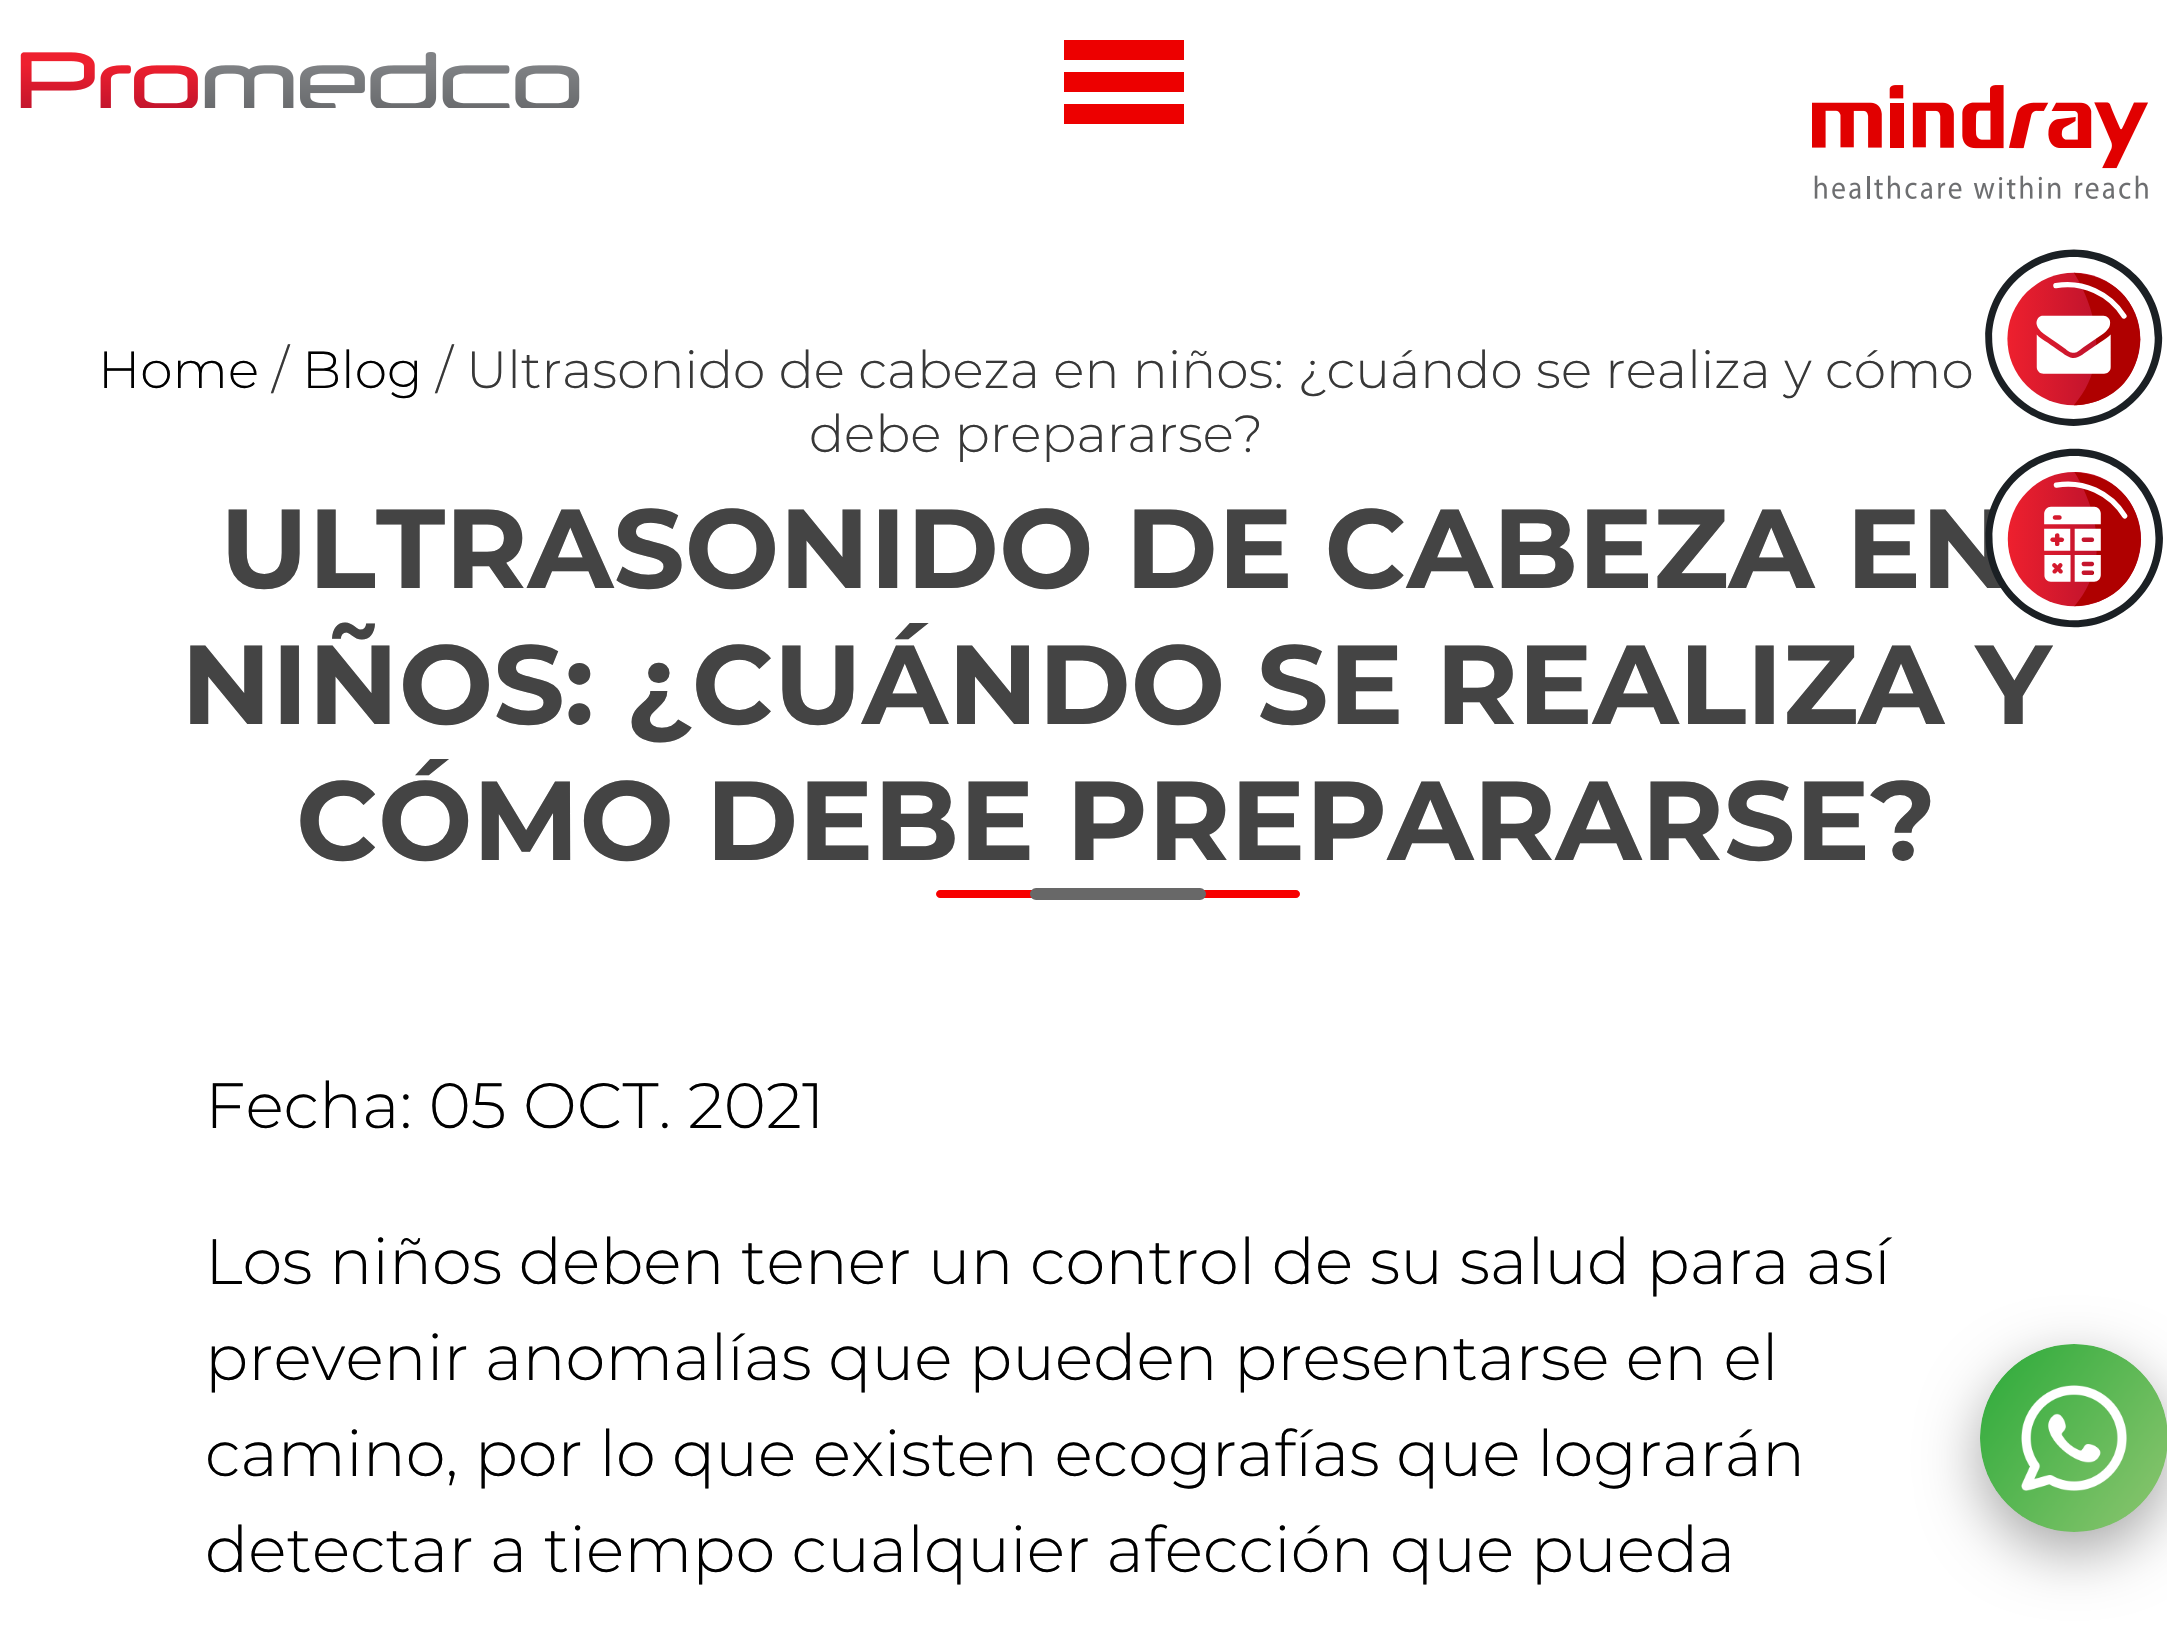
#include "include/core/SkBlurTypes.h"
#include "include/core/SkCanvas.h"
#include "include/core/SkData.h"
#include "include/core/SkFont.h"
#include "include/core/SkFontMgr.h"
#include "include/core/SkImage.h"
#include "include/core/SkMaskFilter.h"
#include "include/core/SkPaint.h"
#include "include/core/SkPathBuilder.h"
#include "include/core/SkTextBlob.h"
#include "include/effects/SkDashPathEffect.h"
#include "include/effects/SkGradientShader.h"
#include "include/utils/SkParsePath.h"

extern sk_sp<SkFontMgr> fontMgr;

void draw(SkCanvas* canvas) {
  SkPaint p;
  p.setAntiAlias(true);
  canvas->clear(SK_ColorWHITE);
  canvas->drawImageRect(SkImages::DeferredFromEncodedData(SkData::MakeFromFileName("images/1.png")), SkRect::MakeLTRB(20, 52, 580, 108), SkSamplingOptions());
  p.setColor(SkColorSetRGB(237, 0, 0));
  canvas->drawRect(SkRect::MakeLTRB(1064, 40, 1184, 60), p);
  canvas->drawRect(SkRect::MakeLTRB(1064, 72, 1184, 92), p);
  canvas->drawRect(SkRect::MakeLTRB(1064, 104, 1184, 124), p);
  canvas->drawImageRect(SkImages::DeferredFromEncodedData(SkData::MakeFromFileName("images/2.png")), SkRect::MakeLTRB(1812, 85, 2148, 200), SkSamplingOptions());
  canvas->drawImageRect(SkImages::DeferredFromEncodedData(SkData::MakeFromFileName("images/3.png")), SkRect::MakeLTRB(1985, 249, 2163, 426), SkSamplingOptions());
  p.setColor(SkColorSetARGB(89, 0, 0, 0));
  p.setMaskFilter(SkMaskFilter::MakeBlur(kNormal_SkBlurStyle, 30));
  canvas->drawRoundRect(SkRect::MakeLTRB(1980, 1364, 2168, 1552), 94, 94, p);
  p.setMaskFilter(nullptr);
  canvas->drawImageRect(SkImages::DeferredFromEncodedData(SkData::MakeFromFileName("images/5.png")), SkRect::MakeLTRB(1980, 1344, 2167, 1532), SkSamplingOptions());
  p.setColor(SkColorSetRGB(247, 0, 0));
  canvas->drawPath(SkPathBuilder().moveTo(1296, 898).lineTo(940, 898).cubicTo(938, 898, 936, 896, 936, 894).cubicTo(936, 892, 938, 890, 940, 890).lineTo(1296, 890).cubicTo(1298, 890, 1300, 892, 1300, 894).cubicTo(1300, 896, 1298, 898, 1296, 898).close().detach(), p);
  p.setColor(SkColorSetRGB(104, 104, 104));
  canvas->drawPath(SkPathBuilder().moveTo(1200, 900).lineTo(1036, 900).cubicTo(1033, 900, 1030, 897, 1030, 894).cubicTo(1030, 891, 1033, 888, 1036, 888).lineTo(1200, 888).cubicTo(1203, 888, 1206, 891, 1206, 894).cubicTo(1206, 897, 1203, 900, 1200, 900).close().detach(), p);
  SkFont font1(fontMgr->matchFamilyStyle("Montserrat", SkFontStyle(300, SkFontStyle::kNormal_Width, SkFontStyle::kUpright_Slant)), 52);
  font1.setSubpixel(true);
  p.setColor(SK_ColorBLACK);
  canvas->drawString("Home", 98, 388, font1, p);
  p.setColor(SkColorSetRGB(56, 56, 56));
  canvas->drawString("/", 272, 388, font1, p);
  p.setColor(SK_ColorBLACK);
  canvas->drawString("Blog", 302, 388, font1, p);
  p.setColor(SkColorSetRGB(56, 56, 56));
  canvas->drawString("/ Ultrasonido de cabeza en niños: ¿cuándo se realiza y cómo", 436, 388, font1, p);
  canvas->drawString("debe prepararse?", 809, 452, font1, p);
  SkFont font2(fontMgr->matchFamilyStyle("Montserrat", SkFontStyle::Bold()), 112);
  font2.setSubpixel(true);
  p.setColor(SkColorSetRGB(68, 68, 68));
  canvas->drawString("ULTRASONIDO DE CABEZA EN", 220, 588, font2, p);
  canvas->drawString("NIÑOS: ¿CUÁNDO SE REALIZA Y", 181, 724, font2, p);
  canvas->drawImageRect(SkImages::DeferredFromEncodedData(SkData::MakeFromFileName("images/4.png")), SkRect::MakeLTRB(1985, 448, 2163, 628), SkSamplingOptions());
  canvas->drawString("CÓMO DEBE PREPARARSE?", 296, 860, font2, p);
  SkFont font3(fontMgr->matchFamilyStyle("Montserrat", SkFontStyle(300, SkFontStyle::kNormal_Width, SkFontStyle::kUpright_Slant)), 64);
  font3.setSubpixel(true);
  p.setColor(SK_ColorBLACK);
  canvas->drawString("Fecha: 05 OCT. 2021", 205, 1128, font3, p);
  canvas->drawString("Los niños deben tener un control de su salud para así", 205, 1284, font3, p);
  canvas->drawString("prevenir anomalías que pueden presentarse en el", 205, 1380, font3, p);
  canvas->drawString("camino, por lo que existen ecografías que lograrán", 205, 1476, font3, p);
  canvas->drawString("detectar a tiempo cualquier afección que pueda", 205, 1572, font3, p);
}
